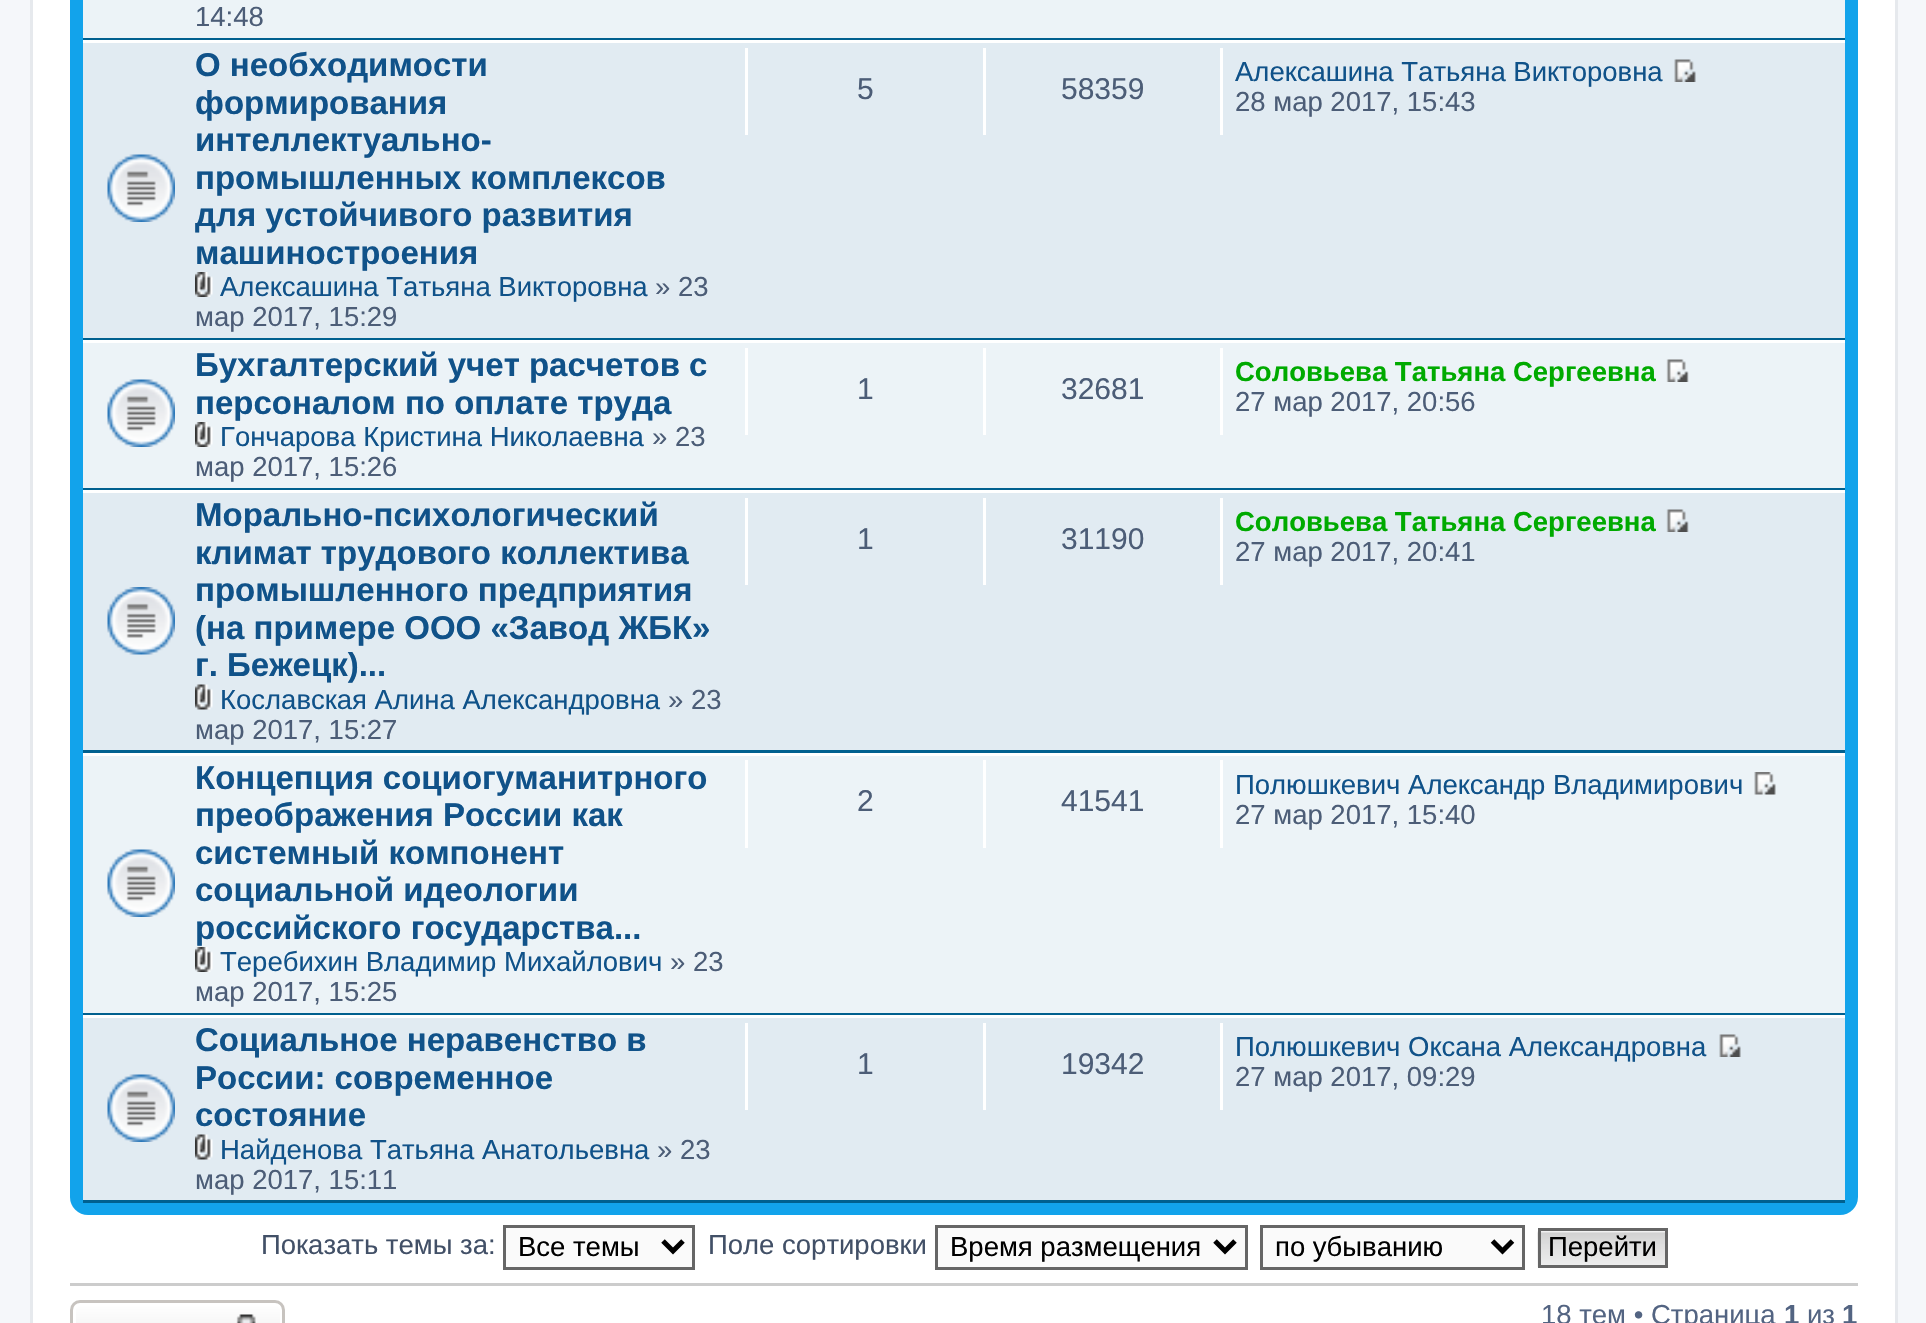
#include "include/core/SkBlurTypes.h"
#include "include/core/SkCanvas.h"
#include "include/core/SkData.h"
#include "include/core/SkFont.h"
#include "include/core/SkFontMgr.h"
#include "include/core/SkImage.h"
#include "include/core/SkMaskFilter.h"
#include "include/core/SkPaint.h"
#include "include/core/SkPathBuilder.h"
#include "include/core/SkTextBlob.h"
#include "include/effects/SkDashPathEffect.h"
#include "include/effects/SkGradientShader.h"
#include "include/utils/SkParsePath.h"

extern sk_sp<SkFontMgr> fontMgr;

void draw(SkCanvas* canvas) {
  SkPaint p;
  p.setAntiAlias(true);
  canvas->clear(SkColorSetRGB(245, 247, 250));
  p.setColor(SK_ColorWHITE);
  canvas->drawRect(SkRect::MakeLTRB(31.5f, -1.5f, 1896.5f, 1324.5f), p);
  p.setStyle(SkPaint::kStroke_Style);
  p.setStrokeWidth(3);
  p.setColor(SkColorSetRGB(230, 233, 237));
  canvas->drawRect(SkRect::MakeLTRB(31.5f, -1.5f, 1896.5f, 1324.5f), p);
  p.setStyle(SkPaint::kFill_Style);
  p.setColor(SkColorSetRGB(18, 163, 235));
  canvas->drawRoundRect(SkRect::MakeLTRB(70, -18, 1858, 1215), 18, 18, p);
  p.setColor(SkColorSetRGB(236, 243, 247));
  canvas->drawRect(SkRect::MakeLTRB(83, 0, 1845, 38), p);
  p.setColor(SkColorSetRGB(0, 96, 143));
  canvas->drawRect(SkRect::MakeLTRB(83, 38, 1845, 40), p);
  p.setColor(SkColorSetRGB(225, 235, 242));
  canvas->drawRect(SkRect::MakeLTRB(83, 43, 1845, 338), p);
  p.setColor(SK_ColorWHITE);
  canvas->drawRect(SkRect::MakeLTRB(83, 40, 1845, 43), p);
  p.setColor(SkColorSetRGB(0, 96, 143));
  canvas->drawRect(SkRect::MakeLTRB(83, 338, 1845, 340), p);
  canvas->drawImageRect(SkImages::DeferredFromEncodedData(SkData::MakeFromFileName("images/1.png")), SkRect::MakeLTRB(107, 154, 175, 222), SkSamplingOptions());
  canvas->drawImageRect(SkImages::DeferredFromEncodedData(SkData::MakeFromFileName("images/2.png")), SkRect::MakeLTRB(195, 272, 213, 297), SkSamplingOptions());
  p.setColor(SK_ColorWHITE);
  canvas->drawRect(SkRect::MakeLTRB(745, 48, 748, 135), p);
  canvas->drawRect(SkRect::MakeLTRB(983, 48, 986, 135), p);
  canvas->drawRect(SkRect::MakeLTRB(1220, 48, 1223, 135), p);
  canvas->drawImageRect(SkImages::DeferredFromEncodedData(SkData::MakeFromFileName("images/3.png")), SkRect::MakeLTRB(1674, 59, 1696, 82), SkSamplingOptions());
  p.setColor(SkColorSetRGB(236, 243, 247));
  canvas->drawRect(SkRect::MakeLTRB(83, 343, 1845, 488), p);
  p.setColor(SK_ColorWHITE);
  canvas->drawRect(SkRect::MakeLTRB(83, 340, 1845, 343), p);
  p.setColor(SkColorSetRGB(0, 96, 143));
  canvas->drawRect(SkRect::MakeLTRB(83, 488, 1845, 490), p);
  canvas->drawImageRect(SkImages::DeferredFromEncodedData(SkData::MakeFromFileName("images/4.png")), SkRect::MakeLTRB(107, 379, 175, 447), SkSamplingOptions());
  canvas->drawImageRect(SkImages::DeferredFromEncodedData(SkData::MakeFromFileName("images/5.png")), SkRect::MakeLTRB(195, 422, 213, 447), SkSamplingOptions());
  p.setColor(SK_ColorWHITE);
  canvas->drawRect(SkRect::MakeLTRB(745, 348, 748, 435), p);
  canvas->drawRect(SkRect::MakeLTRB(983, 348, 986, 435), p);
  canvas->drawRect(SkRect::MakeLTRB(1220, 348, 1223, 435), p);
  canvas->drawImageRect(SkImages::DeferredFromEncodedData(SkData::MakeFromFileName("images/6.png")), SkRect::MakeLTRB(1666, 359, 1689, 382), SkSamplingOptions());
  p.setColor(SkColorSetRGB(225, 235, 242));
  canvas->drawRect(SkRect::MakeLTRB(83, 493, 1845, 750), p);
  p.setColor(SK_ColorWHITE);
  canvas->drawRect(SkRect::MakeLTRB(83, 490, 1845, 493), p);
  p.setColor(SkColorSetRGB(0, 96, 143));
  canvas->drawRect(SkRect::MakeLTRB(83, 750, 1845, 753), p);
  canvas->drawImageRect(SkImages::DeferredFromEncodedData(SkData::MakeFromFileName("images/7.png")), SkRect::MakeLTRB(107, 587, 175, 655), SkSamplingOptions());
  canvas->drawImageRect(SkImages::DeferredFromEncodedData(SkData::MakeFromFileName("images/8.png")), SkRect::MakeLTRB(195, 684, 213, 710), SkSamplingOptions());
  p.setColor(SK_ColorWHITE);
  canvas->drawRect(SkRect::MakeLTRB(745, 498, 748, 585), p);
  canvas->drawRect(SkRect::MakeLTRB(983, 498, 986, 585), p);
  canvas->drawRect(SkRect::MakeLTRB(1220, 498, 1223, 585), p);
  canvas->drawImageRect(SkImages::DeferredFromEncodedData(SkData::MakeFromFileName("images/9.png")), SkRect::MakeLTRB(1666, 509, 1689, 532), SkSamplingOptions());
  p.setColor(SkColorSetRGB(236, 243, 247));
  canvas->drawRect(SkRect::MakeLTRB(83, 756, 1845, 1013), p);
  p.setColor(SK_ColorWHITE);
  canvas->drawRect(SkRect::MakeLTRB(83, 753, 1845, 756), p);
  p.setColor(SkColorSetRGB(0, 96, 143));
  canvas->drawRect(SkRect::MakeLTRB(83, 1013, 1845, 1015), p);
  canvas->drawImageRect(SkImages::DeferredFromEncodedData(SkData::MakeFromFileName("images/4.png")), SkRect::MakeLTRB(107, 849, 175, 917), SkSamplingOptions());
  canvas->drawImageRect(SkImages::DeferredFromEncodedData(SkData::MakeFromFileName("images/5.png")), SkRect::MakeLTRB(195, 947, 213, 972), SkSamplingOptions());
  p.setColor(SK_ColorWHITE);
  canvas->drawRect(SkRect::MakeLTRB(745, 760, 748, 848), p);
  canvas->drawRect(SkRect::MakeLTRB(983, 760, 986, 848), p);
  canvas->drawRect(SkRect::MakeLTRB(1220, 760, 1223, 848), p);
  canvas->drawImageRect(SkImages::DeferredFromEncodedData(SkData::MakeFromFileName("images/10.png")), SkRect::MakeLTRB(1754, 772, 1776, 795), SkSamplingOptions());
  p.setColor(SkColorSetRGB(225, 235, 242));
  canvas->drawRect(SkRect::MakeLTRB(83, 1018, 1845, 1200), p);
  p.setColor(SK_ColorWHITE);
  canvas->drawRect(SkRect::MakeLTRB(83, 1015, 1845, 1018), p);
  p.setColor(SkColorSetRGB(0, 96, 143));
  canvas->drawRect(SkRect::MakeLTRB(83, 1200, 1845, 1203), p);
  canvas->drawImageRect(SkImages::DeferredFromEncodedData(SkData::MakeFromFileName("images/1.png")), SkRect::MakeLTRB(107, 1074, 175, 1142), SkSamplingOptions());
  canvas->drawImageRect(SkImages::DeferredFromEncodedData(SkData::MakeFromFileName("images/8.png")), SkRect::MakeLTRB(195, 1134, 213, 1160), SkSamplingOptions());
  p.setColor(SK_ColorWHITE);
  canvas->drawRect(SkRect::MakeLTRB(745, 1023, 748, 1110), p);
  canvas->drawRect(SkRect::MakeLTRB(983, 1023, 986, 1110), p);
  canvas->drawRect(SkRect::MakeLTRB(1220, 1023, 1223, 1110), p);
  canvas->drawImageRect(SkImages::DeferredFromEncodedData(SkData::MakeFromFileName("images/11.png")), SkRect::MakeLTRB(1719, 1034, 1741, 1057), SkSamplingOptions());
  p.setColor(SkColorSetRGB(250, 250, 250));
  canvas->drawRect(SkRect::MakeLTRB(504.5f, 1226.5f, 693.5f, 1268.5f), p);
  p.setStyle(SkPaint::kStroke_Style);
  p.setColor(SkColorSetRGB(102, 102, 102));
  canvas->drawRect(SkRect::MakeLTRB(504.5f, 1226.5f, 693.5f, 1268.5f), p);
  p.setStrokeWidth(5);
  p.setColor(SK_ColorBLACK);
  canvas->drawPath(SkPathBuilder().moveTo(663, 1241).lineTo(673, 1251).lineTo(683, 1241).detach(), p);
  p.setStyle(SkPaint::kFill_Style);
  p.setColor(SkColorSetRGB(250, 250, 250));
  canvas->drawRect(SkRect::MakeLTRB(936.5f, 1226.5f, 1246.5f, 1268.5f), p);
  p.setStyle(SkPaint::kStroke_Style);
  p.setStrokeWidth(3);
  p.setColor(SkColorSetRGB(102, 102, 102));
  canvas->drawRect(SkRect::MakeLTRB(936.5f, 1226.5f, 1246.5f, 1268.5f), p);
  p.setStrokeWidth(5);
  p.setColor(SK_ColorBLACK);
  canvas->drawPath(SkPathBuilder().moveTo(1215, 1241).lineTo(1225, 1251).lineTo(1235, 1241).detach(), p);
  p.setStyle(SkPaint::kFill_Style);
  p.setColor(SkColorSetRGB(250, 250, 250));
  canvas->drawRect(SkRect::MakeLTRB(1261.5f, 1226.5f, 1523.5f, 1268.5f), p);
  p.setStyle(SkPaint::kStroke_Style);
  p.setStrokeWidth(3);
  p.setColor(SkColorSetRGB(102, 102, 102));
  canvas->drawRect(SkRect::MakeLTRB(1261.5f, 1226.5f, 1523.5f, 1268.5f), p);
  p.setStrokeWidth(5);
  p.setColor(SK_ColorBLACK);
  canvas->drawPath(SkPathBuilder().moveTo(1492.5f, 1241).lineTo(1502.5f, 1251).lineTo(1512.5f, 1241).detach(), p);
  canvas->drawImageRect(SkImages::DeferredFromEncodedData(SkData::MakeFromFileName("images/12.png")), SkRect::MakeLTRB(1537, 1230, 1665, 1267), SkSamplingOptions());
  p.setStrokeWidth(3);
  p.setColor(SkColorSetRGB(102, 102, 102));
  canvas->drawRect(SkRect::MakeLTRB(1539.5f, 1229.5f, 1666.5f, 1266.5f), p);
  p.setStyle(SkPaint::kFill_Style);
  p.setColor(SkColorSetRGB(204, 204, 204));
  canvas->drawRect(SkRect::MakeLTRB(70, 1283, 1858, 1286), p);
  canvas->save();
  canvas->clipPath(SkPathBuilder().moveTo(80, 1300).lineTo(275, 1300).cubicTo(280.5f, 1300, 285, 1304.5f, 285, 1310).lineTo(285, 1350).cubicTo(285, 1355.5f, 280.5f, 1360, 275, 1360).lineTo(80, 1360).cubicTo(74.5f, 1360, 70, 1355.5f, 70, 1350).lineTo(70, 1310).cubicTo(70, 1304.5f, 74.5f, 1300, 80, 1300).close().detach(), true);
  {
    const SkColor colors[] = {SK_ColorWHITE, SkColorSetRGB(233, 233, 233)};
    const float stops[] = {0, 1};
    const SkPoint ends[] = {{178, 1303}, {178, 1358}};
    p.setShader(SkGradientShader::MakeLinear(ends, colors, stops, 2, SkTileMode::kClamp));
    p.setAlpha(255);
  }
  canvas->drawRect(SkRect::MakeLTRB(70, 1303, 285, 1323), p);
  canvas->restore();
  p.setStyle(SkPaint::kStroke_Style);
  p.setShader(nullptr);
  p.setColor(SK_ColorWHITE);
  canvas->drawRoundRect(SkRect::MakeLTRB(74.5f, 1304.5f, 281.5f, 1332.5f), 6.5f, 6.5f, p);
  p.setColor(SkColorSetRGB(199, 195, 191));
  canvas->drawRoundRect(SkRect::MakeLTRB(71.5f, 1301.5f, 283.5f, 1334.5f), 8.5f, 8.5f, p);
  canvas->drawImageRect(SkImages::DeferredFromEncodedData(SkData::MakeFromFileName("images/13.png")), SkRect::MakeLTRB(236, 1314, 256, 1323), SkSamplingOptions());
  SkFont font1(fontMgr->matchFamilyStyle("Liberation Sans", SkFontStyle::Normal()), 27.5f);
  font1.setSubpixel(true);
  p.setStyle(SkPaint::kFill_Style);
  p.setColor(SkColorSetRGB(76, 93, 119));
  canvas->drawString("14:48", 195, 26, font1, p);
  SkFont font2(fontMgr->matchFamilyStyle("Liberation Sans", SkFontStyle::Bold()), 33);
  font2.setSubpixel(true);
  p.setColor(SkColorSetRGB(16, 82, 137));
  canvas->drawString("О необходимости", 195, 76, font2, p);
  canvas->drawString("формирования", 195, 114, font2, p);
  canvas->drawString("интеллектуально-", 195, 151, font2, p);
  canvas->drawString("промышленных комплексов", 195, 189, font2, p);
  canvas->drawString("для устойчивого развития", 195, 226, font2, p);
  canvas->drawString("машиностроения", 195, 264, font2, p);
  canvas->drawString("Алексашина Татьяна Викторовна", 220, 296, font1, p);
  p.setColor(SkColorSetRGB(76, 93, 119));
  canvas->drawString("» 23", 655, 296, font1, p);
  canvas->drawString("мар 2017, 15:29", 195, 326, font1, p);
  SkFont font3(fontMgr->matchFamilyStyle("Liberation Sans", SkFontStyle::Normal()), 30);
  font3.setSubpixel(true);
  canvas->drawString("5", 857, 99, font3, p);
  canvas->drawString("58359", 1061, 99, font3, p);
  p.setColor(SkColorSetRGB(16, 82, 137));
  canvas->drawString("Алексашина Татьяна Викторовна", 1235, 81, font1, p);
  p.setColor(SkColorSetRGB(76, 93, 119));
  canvas->drawString("28 мар 2017, 15:43", 1235, 111, font1, p);
  p.setColor(SkColorSetRGB(16, 82, 137));
  canvas->drawString("Бухгалтерский учет расчетов с", 195, 376, font2, p);
  canvas->drawString("персоналом по оплате труда", 195, 414, font2, p);
  canvas->drawString("Гончарова Кристина Николаевна", 220, 446, font1, p);
  p.setColor(SkColorSetRGB(76, 93, 119));
  canvas->drawString("» 23", 652, 446, font1, p);
  canvas->drawString("мар 2017, 15:26", 195, 476, font1, p);
  canvas->drawString("1", 857, 399, font3, p);
  canvas->drawString("32681", 1061, 399, font3, p);
  SkFont font4(fontMgr->matchFamilyStyle("Liberation Sans", SkFontStyle::Bold()), 27.5f);
  font4.setSubpixel(true);
  p.setColor(SkColorSetRGB(0, 170, 0));
  canvas->drawString("Соловьева Татьяна Сергеевна", 1235, 381, font4, p);
  p.setColor(SkColorSetRGB(76, 93, 119));
  canvas->drawString("27 мар 2017, 20:56", 1235, 411, font1, p);
  p.setColor(SkColorSetRGB(16, 82, 137));
  canvas->drawString("Морально-психологический", 195, 526, font2, p);
  canvas->drawString("климат трудового коллектива", 195, 564, font2, p);
  canvas->drawString("промышленного предприятия", 195, 601, font2, p);
  canvas->drawString("(на примере ООО «Завод ЖБК»", 195, 639, font2, p);
  canvas->drawString("г. Бежецк)...", 195, 676, font2, p);
  canvas->drawString("Кославская Алина Александровна", 220, 709, font1, p);
  p.setColor(SkColorSetRGB(76, 93, 119));
  canvas->drawString("» 23", 668, 709, font1, p);
  canvas->drawString("мар 2017, 15:27", 195, 739, font1, p);
  canvas->drawString("1", 857, 549, font3, p);
  canvas->drawString("31190", 1061, 549, font3, p);
  p.setColor(SkColorSetRGB(0, 170, 0));
  canvas->drawString("Соловьева Татьяна Сергеевна", 1235, 531, font4, p);
  p.setColor(SkColorSetRGB(76, 93, 119));
  canvas->drawString("27 мар 2017, 20:41", 1235, 561, font1, p);
  p.setColor(SkColorSetRGB(16, 82, 137));
  canvas->drawString("Концепция социогуманитрного", 195, 789, font2, p);
  canvas->drawString("преображения России как", 195, 826, font2, p);
  canvas->drawString("системный компонент", 195, 864, font2, p);
  canvas->drawString("социальной идеологии", 195, 901, font2, p);
  canvas->drawString("российского государства...", 195, 939, font2, p);
  canvas->drawString("Теребихин Владимир Михайлович", 220, 971, font1, p);
  p.setColor(SkColorSetRGB(76, 93, 119));
  canvas->drawString("» 23", 670, 971, font1, p);
  canvas->drawString("мар 2017, 15:25", 195, 1001, font1, p);
  canvas->drawString("2", 857, 811, font3, p);
  canvas->drawString("41541", 1061, 811, font3, p);
  p.setColor(SkColorSetRGB(16, 82, 137));
  canvas->drawString("Полюшкевич Александр Владимирович", 1235, 794, font1, p);
  p.setColor(SkColorSetRGB(76, 93, 119));
  canvas->drawString("27 мар 2017, 15:40", 1235, 824, font1, p);
  p.setColor(SkColorSetRGB(16, 82, 137));
  canvas->drawString("Социальное неравенство в", 195, 1051, font2, p);
  canvas->drawString("России: современное", 195, 1089, font2, p);
  canvas->drawString("состояние", 195, 1126, font2, p);
  canvas->drawString("Найденова Татьяна Анатольевна", 220, 1159, font1, p);
  p.setColor(SkColorSetRGB(76, 93, 119));
  canvas->drawString("» 23", 657, 1159, font1, p);
  canvas->drawString("мар 2017, 15:11", 195, 1189, font1, p);
  canvas->drawString("1", 857, 1074, font3, p);
  canvas->drawString("19342", 1061, 1074, font3, p);
  p.setColor(SkColorSetRGB(16, 82, 137));
  canvas->drawString("Полюшкевич Оксана Александровна", 1235, 1056, font1, p);
  p.setColor(SkColorSetRGB(76, 93, 119));
  canvas->drawString("27 мар 2017, 09:29", 1235, 1086, font1, p);
  p.setColor(SkColorSetRGB(66, 80, 103));
  canvas->drawString("Показать темы за:", 261, 1254, font1, p);
  p.setColor(SK_ColorBLACK);
  canvas->drawString("Все темы", 518, 1256, font1, p);
  p.setColor(SkColorSetRGB(66, 80, 103));
  canvas->drawString("Поле сортировки", 708, 1254, font1, p);
  p.setColor(SK_ColorBLACK);
  canvas->drawString("Время размещения", 950, 1256, font1, p);
  canvas->drawString("по убыванию", 1275, 1256, font1, p);
  canvas->drawString("Перейти", 1548, 1256, font1, p);
  p.setColor(SkColorSetRGB(83, 100, 130));
  canvas->drawString("18 тем • Страница", 1541, 1324, font1, p);
  canvas->drawString("1", 1784, 1324, font4, p);
  canvas->drawString("из", 1807, 1324, font1, p);
  canvas->drawString("1", 1842, 1324, font4, p);
}
